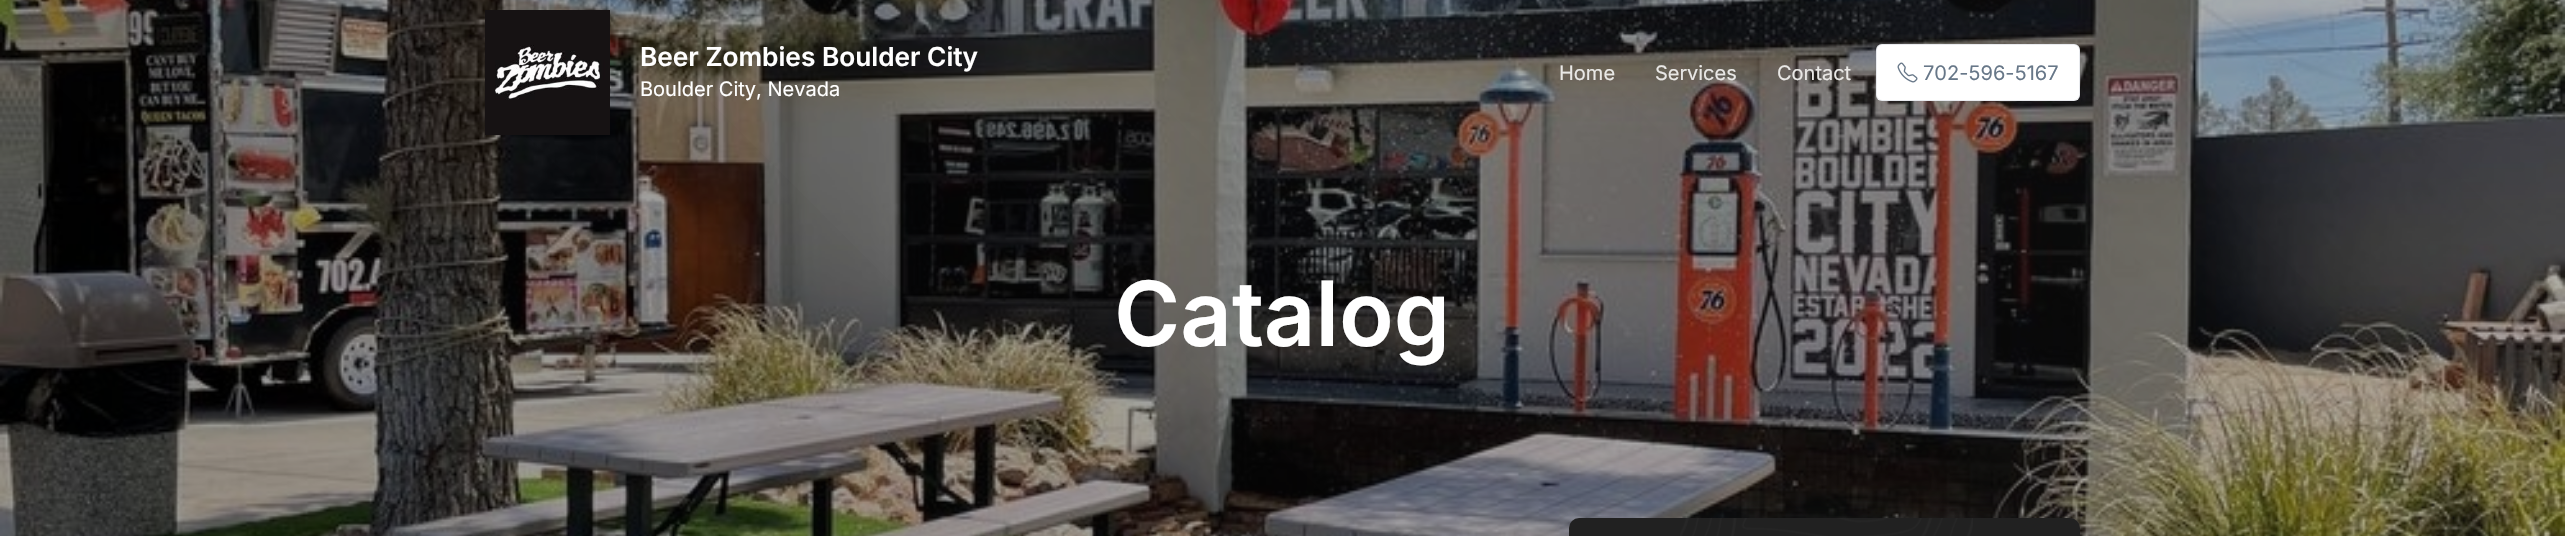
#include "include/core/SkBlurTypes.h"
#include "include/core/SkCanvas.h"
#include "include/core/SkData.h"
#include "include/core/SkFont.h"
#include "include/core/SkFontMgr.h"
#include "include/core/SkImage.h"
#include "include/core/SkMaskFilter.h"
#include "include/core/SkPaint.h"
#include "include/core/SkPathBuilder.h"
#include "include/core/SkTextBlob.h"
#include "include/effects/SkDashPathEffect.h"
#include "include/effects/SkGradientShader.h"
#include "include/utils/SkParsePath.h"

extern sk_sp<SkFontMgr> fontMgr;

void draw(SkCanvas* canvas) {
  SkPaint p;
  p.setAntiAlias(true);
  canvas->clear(SK_ColorWHITE);
  canvas->drawImageRect(SkImages::DeferredFromEncodedData(SkData::MakeFromFileName("images/3.png")), SkRect::MakeLTRB(0, 0, 2565, 536), SkSamplingOptions());
  canvas->drawImageRect(SkImages::DeferredFromEncodedData(SkData::MakeFromFileName("images/1.png")), SkRect::MakeLTRB(485, 10, 610, 135), SkSamplingOptions());
  p.setColor(SK_ColorWHITE);
  canvas->drawRoundRect(SkRect::MakeLTRB(1876, 44, 2080, 101), 6, 6, p);
  p.setStyle(SkPaint::kStroke_Style);
  p.setStrokeWidth(1);
  p.setColor(SkColorSetARGB(26, 33, 50, 91));
  canvas->drawRoundRect(SkRect::MakeLTRB(1876.5f, 44.5f, 2079.5f, 100.5f), 5.5f, 5.5f, p);
  canvas->drawImageRect(SkImages::DeferredFromEncodedData(SkData::MakeFromFileName("images/2.png")), SkRect::MakeLTRB(1897, 62, 1918, 83), SkSamplingOptions());
  p.setStyle(SkPaint::kFill_Style);
  p.setColor(SkColorSetARGB(31, 140, 152, 164));
  p.setMaskFilter(SkMaskFilter::MakeBlur(kNormal_SkBlurStyle, 15));
  canvas->drawRoundRect(SkRect::MakeLTRB(1569, 525, 2080, 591), 10, 10, p);
  p.setMaskFilter(nullptr);
  p.setColor(SkColorSetRGB(33, 33, 33));
  canvas->drawRoundRect(SkRect::MakeLTRB(1569, 518, 2080, 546), 10, 10, p);
  canvas->drawImageRect(SkImages::DeferredFromEncodedData(SkData::MakeFromFileName("images/4.png")), SkRect::MakeLTRB(1680, 518, 1973, 536), SkSamplingOptions());
  SkFont font1(fontMgr->matchFamilyStyle("Inter", SkFontStyle(600, SkFontStyle::kNormal_Width, SkFontStyle::kUpright_Slant)), 26.25f);
  font1.setSubpixel(true);
  p.setColor(SK_ColorWHITE);
  canvas->drawString("Beer Zombies Boulder City", 640, 66, font1, p);
  SkFont font2(fontMgr->matchFamilyStyle("Inter", SkFontStyle::Normal()), 20);
  font2.setSubpixel(true);
  canvas->drawString("Boulder City, Nevada", 640, 96, font2, p);
  p.setColor(SkColorSetRGB(233, 232, 230));
  canvas->drawString("Home", 1559, 80, font2, p);
  canvas->drawString("Services", 1655, 80, font2, p);
  canvas->drawString("Contact", 1777, 80, font2, p);
  p.setColor(SkColorSetRGB(103, 119, 136));
  canvas->drawString("702-596-5167", 1923, 80, font2, p);
  SkFont font3(fontMgr->matchFamilyStyle("Inter", SkFontStyle(600, SkFontStyle::kNormal_Width, SkFontStyle::kUpright_Slant)), 90);
  font3.setSubpixel(true);
  p.setColor(SK_ColorWHITE);
  canvas->drawString("Catalog", 1114, 346, font3, p);
}
